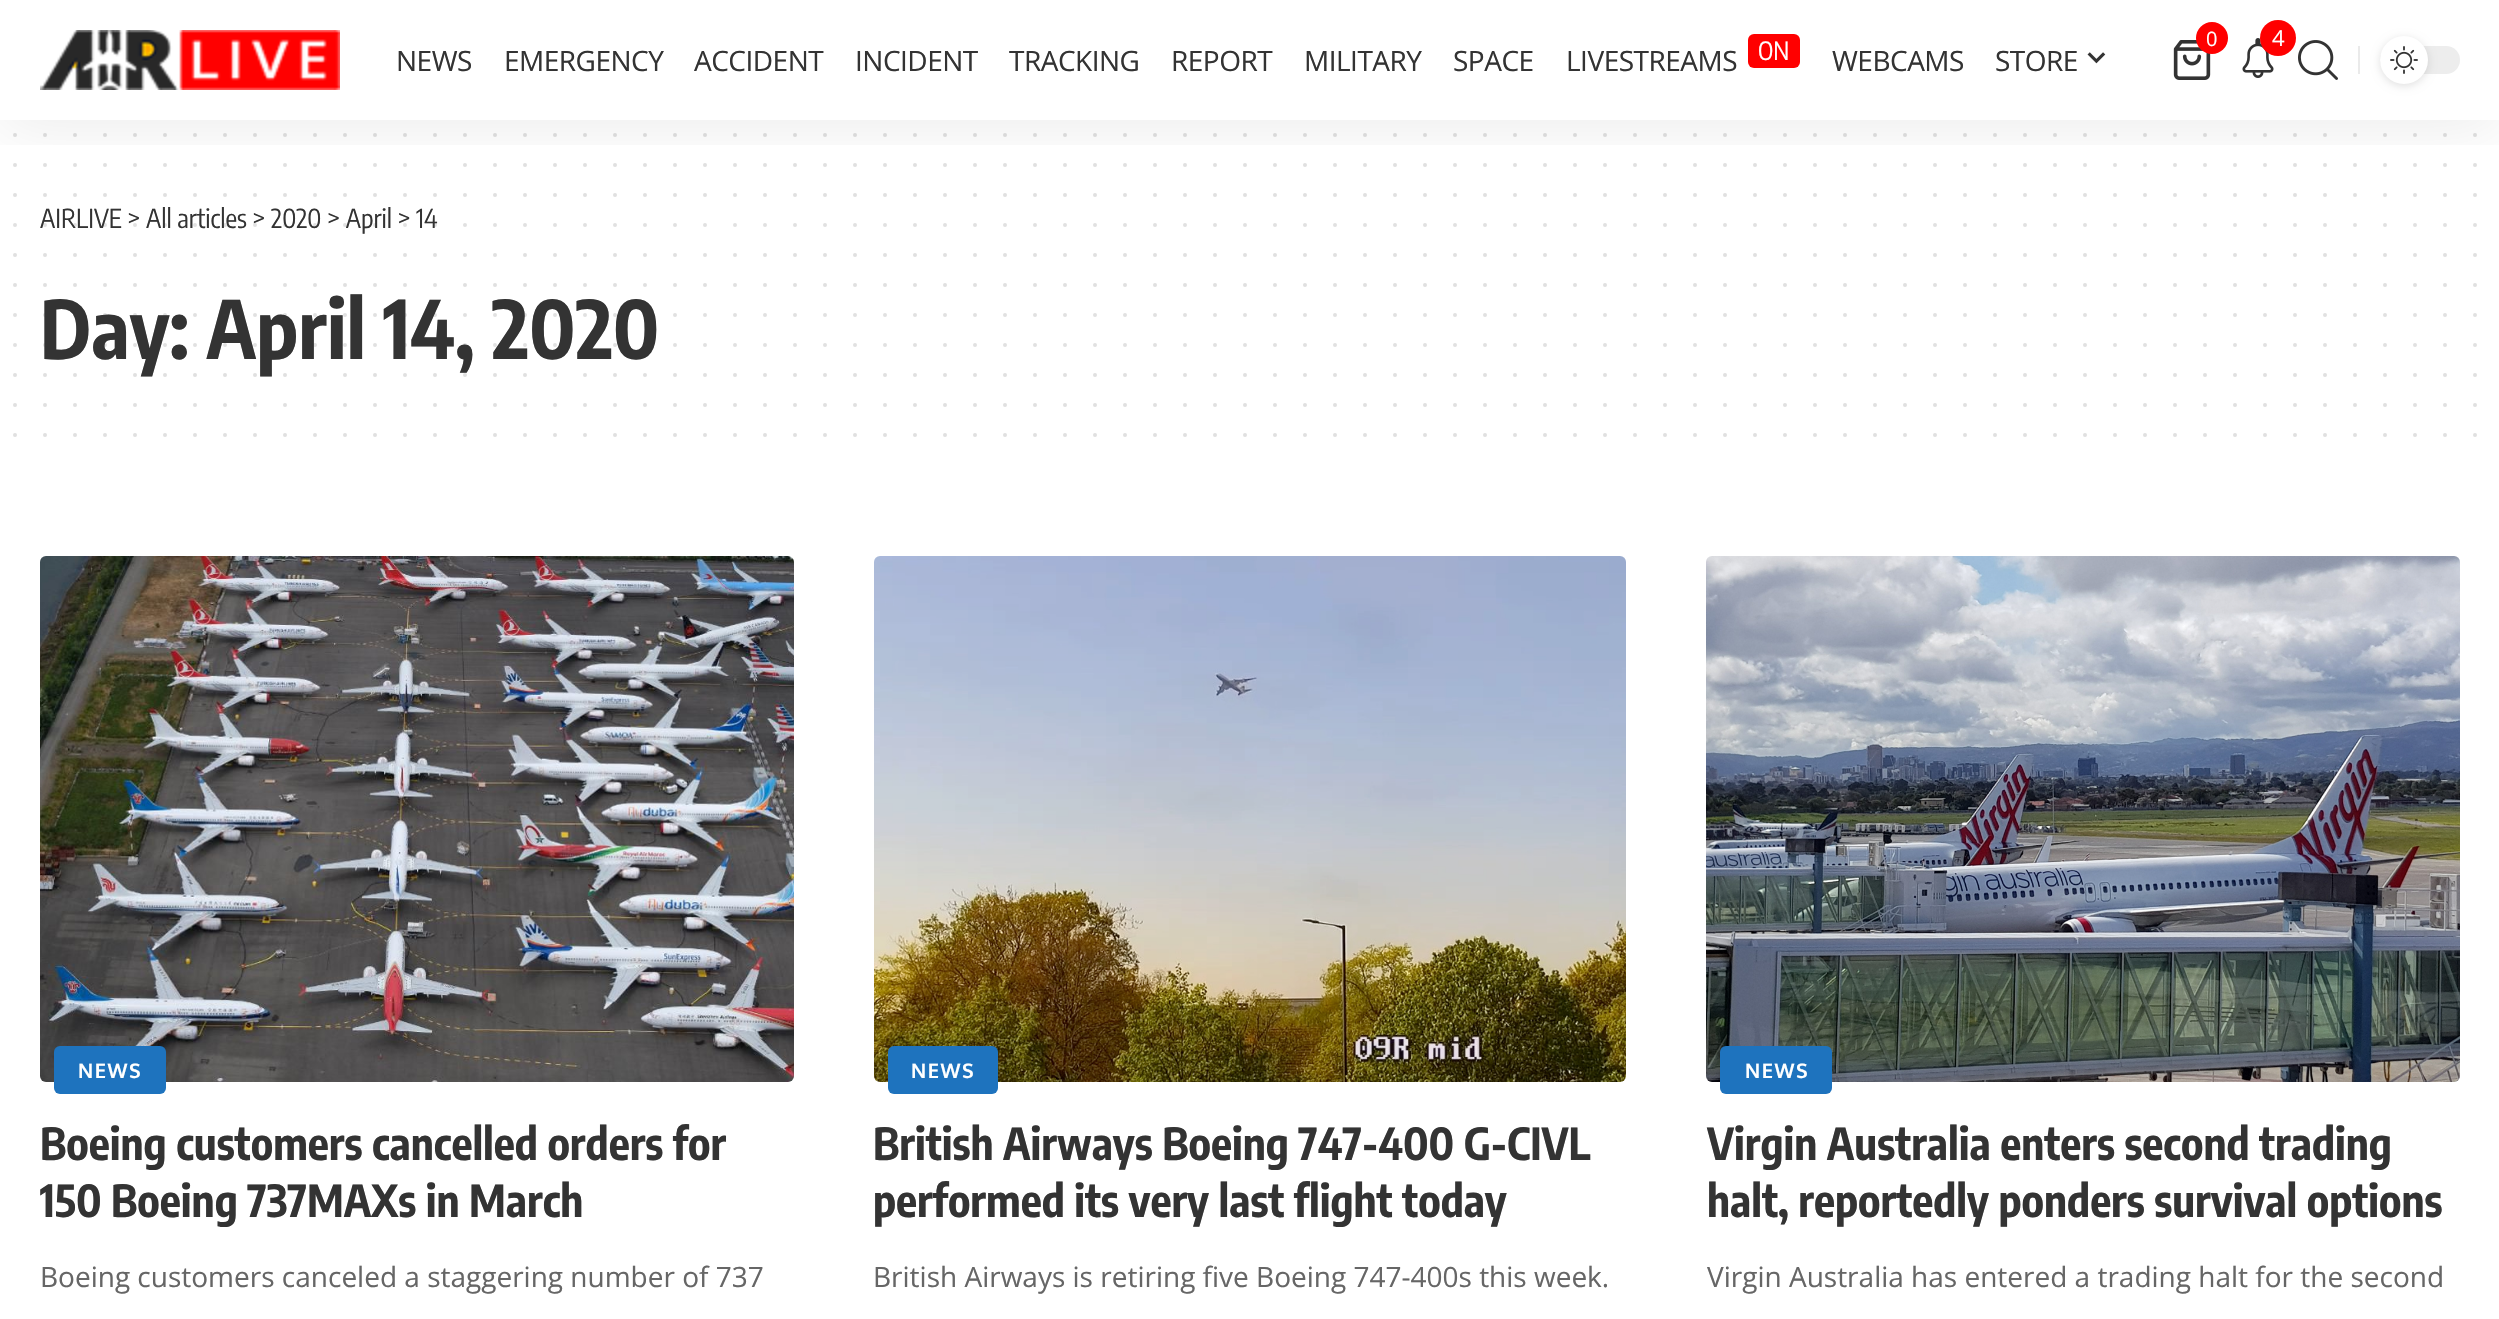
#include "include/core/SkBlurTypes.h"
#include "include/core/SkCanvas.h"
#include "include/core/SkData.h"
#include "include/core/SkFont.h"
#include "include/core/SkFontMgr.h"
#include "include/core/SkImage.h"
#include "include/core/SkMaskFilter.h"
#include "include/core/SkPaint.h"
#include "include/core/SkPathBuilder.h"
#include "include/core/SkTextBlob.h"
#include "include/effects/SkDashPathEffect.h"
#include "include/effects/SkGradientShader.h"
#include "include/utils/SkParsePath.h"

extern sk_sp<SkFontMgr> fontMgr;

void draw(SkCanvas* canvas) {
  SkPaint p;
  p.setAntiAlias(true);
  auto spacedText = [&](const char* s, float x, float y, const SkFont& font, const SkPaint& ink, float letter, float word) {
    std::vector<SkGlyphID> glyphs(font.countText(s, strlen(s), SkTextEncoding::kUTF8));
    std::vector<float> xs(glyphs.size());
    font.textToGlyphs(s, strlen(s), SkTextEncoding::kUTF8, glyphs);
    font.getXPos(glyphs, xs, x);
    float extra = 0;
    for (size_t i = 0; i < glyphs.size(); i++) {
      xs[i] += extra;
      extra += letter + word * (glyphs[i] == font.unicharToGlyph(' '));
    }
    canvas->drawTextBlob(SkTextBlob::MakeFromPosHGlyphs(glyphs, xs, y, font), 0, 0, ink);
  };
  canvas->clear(SK_ColorWHITE);
  p.setStyle(SkPaint::kStroke_Style);
  p.setStrokeWidth(4);
  p.setStrokeCap(SkPaint::kRound_Cap);
  p.setColor(SkColorSetRGB(224, 224, 224));
  p.setPathEffect(SkDashPathEffect::Make({{0, 30}}, 0));
  canvas->drawPath(SkPathBuilder().moveTo(15, 135).lineTo(2475.4f, 135).detach(), p);
  p.setPathEffect(nullptr);
  p.setPathEffect(SkDashPathEffect::Make({{0, 30}}, 0));
  canvas->drawPath(SkPathBuilder().moveTo(15, 165).lineTo(2475.4f, 165).detach(), p);
  p.setPathEffect(nullptr);
  p.setPathEffect(SkDashPathEffect::Make({{0, 30}}, 0));
  canvas->drawPath(SkPathBuilder().moveTo(15, 195).lineTo(2475.4f, 195).detach(), p);
  p.setPathEffect(nullptr);
  canvas->save();
  canvas->clipRect(SkRect::MakeLTRB(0, 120, 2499, 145));
  p.setStyle(SkPaint::kFill_Style);
  p.setColor(SkColorSetARGB(18, 0, 0, 0));
  p.setMaskFilter(SkMaskFilter::MakeBlur(kNormal_SkBlurStyle, 30));
  canvas->drawRect(SkRect::MakeLTRB(0, 8, 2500, 128), p);
  p.setMaskFilter(nullptr);
  canvas->restore();
  canvas->drawImageRect(SkImages::DeferredFromEncodedData(SkData::MakeFromFileName("images/1.png")), SkRect::MakeLTRB(2173, 40, 2211, 80), SkSamplingOptions());
  p.setColor(SkColorSetRGB(255, 0, 0));
  canvas->drawCircle(2212, 38, 16, p);
  canvas->drawImageRect(SkImages::DeferredFromEncodedData(SkData::MakeFromFileName("images/2.png")), SkRect::MakeLTRB(2242, 38, 2274, 78), SkSamplingOptions());
  canvas->drawCircle(2278, 38, 18, p);
  canvas->drawImageRect(SkImages::DeferredFromEncodedData(SkData::MakeFromFileName("images/3.png")), SkRect::MakeLTRB(2298, 40, 2338, 80), SkSamplingOptions());
  p.setColor(SkColorSetRGB(234, 234, 234));
  canvas->drawRect(SkRect::MakeLTRB(2358, 46, 2360, 74), p);
  p.setColor(SkColorSetRGB(237, 237, 237));
  canvas->drawRoundRect(SkRect::MakeLTRB(2380, 46, 2460, 74), 14, 14, p);
  p.setColor(SkColorSetARGB(31, 0, 0, 0));
  p.setMaskFilter(SkMaskFilter::MakeBlur(kNormal_SkBlurStyle, 4));
  canvas->drawRoundRect(SkRect::MakeLTRB(2380, 38, 2428, 86), 24, 24, p);
  p.setMaskFilter(nullptr);
  p.setColor(SK_ColorWHITE);
  canvas->drawCircle(2404, 60, 24, p);
  canvas->drawImageRect(SkImages::DeferredFromEncodedData(SkData::MakeFromFileName("images/4.png")), SkRect::MakeLTRB(2390, 46, 2418, 74), SkSamplingOptions());
  canvas->drawImageRect(SkImages::DeferredFromEncodedData(SkData::MakeFromFileName("images/5.png")), SkRect::MakeLTRB(40, 30, 340, 90), SkSamplingOptions());
  p.setColor(SkColorSetRGB(255, 0, 0));
  canvas->drawRoundRect(SkRect::MakeLTRB(1748, 34, 1800, 68), 6, 6, p);
  canvas->drawImageRect(SkImages::DeferredFromEncodedData(SkData::MakeFromFileName("images/6.png")), SkRect::MakeLTRB(2087, 52, 2106, 64), SkSamplingOptions());
  p.setStyle(SkPaint::kStroke_Style);
  p.setColor(SkColorSetRGB(224, 224, 224));
  p.setPathEffect(SkDashPathEffect::Make({{0, 30}}, 0));
  canvas->drawPath(SkPathBuilder().moveTo(15, 255).lineTo(2475.4f, 255).detach(), p);
  p.setPathEffect(nullptr);
  p.setPathEffect(SkDashPathEffect::Make({{0, 30}}, 0));
  canvas->drawPath(SkPathBuilder().moveTo(15, 285).lineTo(2475.4f, 285).detach(), p);
  p.setPathEffect(nullptr);
  p.setPathEffect(SkDashPathEffect::Make({{0, 30}}, 0));
  canvas->drawPath(SkPathBuilder().moveTo(15, 405).lineTo(2475.4f, 405).detach(), p);
  p.setPathEffect(nullptr);
  p.setPathEffect(SkDashPathEffect::Make({{0, 30}}, 0));
  canvas->drawPath(SkPathBuilder().moveTo(15, 435).lineTo(2475.4f, 435).detach(), p);
  p.setPathEffect(nullptr);
  canvas->drawImageRect(SkImages::DeferredFromEncodedData(SkData::MakeFromFileName("images/7.png")), SkRect::MakeLTRB(40, 556, 794, 1082), SkSamplingOptions());
  p.setStyle(SkPaint::kFill_Style);
  p.setColor(SkColorSetRGB(30, 115, 190));
  canvas->drawRoundRect(SkRect::MakeLTRB(54, 1046, 166, 1094), 6, 6, p);
  canvas->drawImageRect(SkImages::DeferredFromEncodedData(SkData::MakeFromFileName("images/8.png")), SkRect::MakeLTRB(874, 556, 1626, 1082), SkSamplingOptions());
  canvas->drawRoundRect(SkRect::MakeLTRB(888, 1046, 998, 1094), 6, 6, p);
  canvas->drawImageRect(SkImages::DeferredFromEncodedData(SkData::MakeFromFileName("images/9.png")), SkRect::MakeLTRB(1706, 556, 2460, 1082), SkSamplingOptions());
  canvas->drawRoundRect(SkRect::MakeLTRB(1720, 1046, 1832, 1094), 6, 6, p);
  SkFont font1(fontMgr->matchFamilyStyle("Open Sans", SkFontStyle::Normal()), 20);
  font1.setSubpixel(true);
  p.setColor(SK_ColorWHITE);
  canvas->drawString("0", 2206, 46, font1, p);
  SkFont font2(fontMgr->matchFamilyStyle("Open Sans", SkFontStyle::Normal()), 22);
  font2.setSubpixel(true);
  canvas->drawString("4", 2272, 46, font2, p);
  SkFont font3(fontMgr->matchFamilyStyle("Open Sans", SkFontStyle::Normal()), 28);
  font3.setSubpixel(true);
  p.setColor(SkColorSetRGB(51, 51, 51));
  spacedText("NEWS", 396, 71, font3, p, -0.5f, 0);
  spacedText("EMERGENCY", 504, 71, font3, p, -0.5f, 0);
  spacedText("ACCIDENT", 694, 71, font3, p, -0.5f, 0);
  spacedText("INCIDENT", 855, 71, font3, p, -0.5f, 0);
  spacedText("TRACKING", 1009, 71, font3, p, -0.5f, 0);
  spacedText("REPORT", 1171, 71, font3, p, -0.5f, 0);
  spacedText("MILITARY", 1304, 71, font3, p, -0.5f, 0);
  spacedText("SPACE", 1453, 71, font3, p, -0.5f, 0);
  spacedText("LIVESTREAMS", 1566, 71, font3, p, -0.5f, 0);
  SkFont font4(fontMgr->matchFamilyStyle("Encode Sans Condensed", SkFontStyle::Normal()), 25);
  font4.setSubpixel(true);
  p.setColor(SK_ColorWHITE);
  canvas->drawString("ON", 1758, 60, font4, p);
  p.setColor(SkColorSetRGB(51, 51, 51));
  spacedText("WEBCAMS", 1832, 71, font3, p, -0.5f, 0);
  spacedText("STORE", 1995, 71, font3, p, -0.5f, 0);
  SkFont font5(fontMgr->matchFamilyStyle("Encode Sans Condensed", SkFontStyle::Normal()), 26);
  font5.setSubpixel(true);
  canvas->drawString("AIRLIVE > All articles > 2020 > April > 14", 40, 228, font5, p);
  p.setStyle(SkPaint::kStroke_Style);
  p.setColor(SkColorSetARGB(38, 51, 51, 51));
  p.setPathEffect(SkDashPathEffect::Make({{0, 30}}, 0));
  canvas->drawPath(SkPathBuilder().moveTo(15, 225).lineTo(2475.4f, 225).detach(), p);
  p.setPathEffect(nullptr);
  SkFont font6(fontMgr->matchFamilyStyle("Encode Sans Condensed", SkFontStyle::Bold()), 80);
  font6.setSubpixel(true);
  p.setStyle(SkPaint::kFill_Style);
  p.setColor(SkColorSetRGB(51, 51, 51));
  canvas->drawString("Day: April 14, 2020", 40, 359, font6, p);
  p.setStyle(SkPaint::kStroke_Style);
  p.setColor(SkColorSetRGB(224, 224, 224));
  p.setPathEffect(SkDashPathEffect::Make({{0, 30}}, 0));
  canvas->drawPath(SkPathBuilder().moveTo(15, 375).lineTo(2475.4f, 375).detach(), p);
  p.setPathEffect(nullptr);
  p.setColor(SkColorSetARGB(38, 51, 51, 51));
  p.setPathEffect(SkDashPathEffect::Make({{0, 30}}, 0));
  canvas->drawPath(SkPathBuilder().moveTo(15, 345).lineTo(2475.4f, 345).detach(), p);
  p.setPathEffect(nullptr);
  p.setPathEffect(SkDashPathEffect::Make({{0, 30}}, 0));
  canvas->drawPath(SkPathBuilder().moveTo(15, 315).lineTo(2475.4f, 315).detach(), p);
  p.setPathEffect(nullptr);
  SkFont font7(fontMgr->matchFamilyStyle("Oxygen", SkFontStyle::Bold()), 20);
  font7.setSubpixel(true);
  p.setStyle(SkPaint::kFill_Style);
  p.setColor(SK_ColorWHITE);
  spacedText("NEWS", 78, 1078, font7, p, 1.5f, 0);
  SkFont font8(fontMgr->matchFamilyStyle("Encode Sans Condensed", SkFontStyle::Bold()), 44);
  font8.setSubpixel(true);
  p.setColor(SkColorSetRGB(51, 51, 51));
  canvas->drawString("Boeing customers cancelled orders for", 40, 1160, font8, p);
  canvas->drawString("150 Boeing 737MAXs in March", 40, 1217, font8, p);
  p.setColor(SkColorSetRGB(102, 102, 102));
  canvas->drawString("Boeing customers canceled a staggering number of 737", 40, 1287, font3, p);
  p.setColor(SK_ColorWHITE);
  spacedText("NEWS", 911, 1078, font7, p, 1.5f, 0);
  p.setColor(SkColorSetRGB(51, 51, 51));
  canvas->drawString("British Airways Boeing 747-400 G-CIVL", 873, 1160, font8, p);
  canvas->drawString("performed its very last flight today", 873, 1217, font8, p);
  p.setColor(SkColorSetRGB(102, 102, 102));
  canvas->drawString("British Airways is retiring five Boeing 747-400s this week.", 873, 1287, font3, p);
  p.setColor(SK_ColorWHITE);
  spacedText("NEWS", 1745, 1078, font7, p, 1.5f, 0);
  p.setColor(SkColorSetRGB(51, 51, 51));
  canvas->drawString("Virgin Australia enters second trading", 1707, 1160, font8, p);
  canvas->drawString("halt, reportedly ponders survival options", 1707, 1217, font8, p);
  p.setColor(SkColorSetRGB(102, 102, 102));
  canvas->drawString("Virgin Australia has entered a trading halt for the second", 1707, 1287, font3, p);
}
